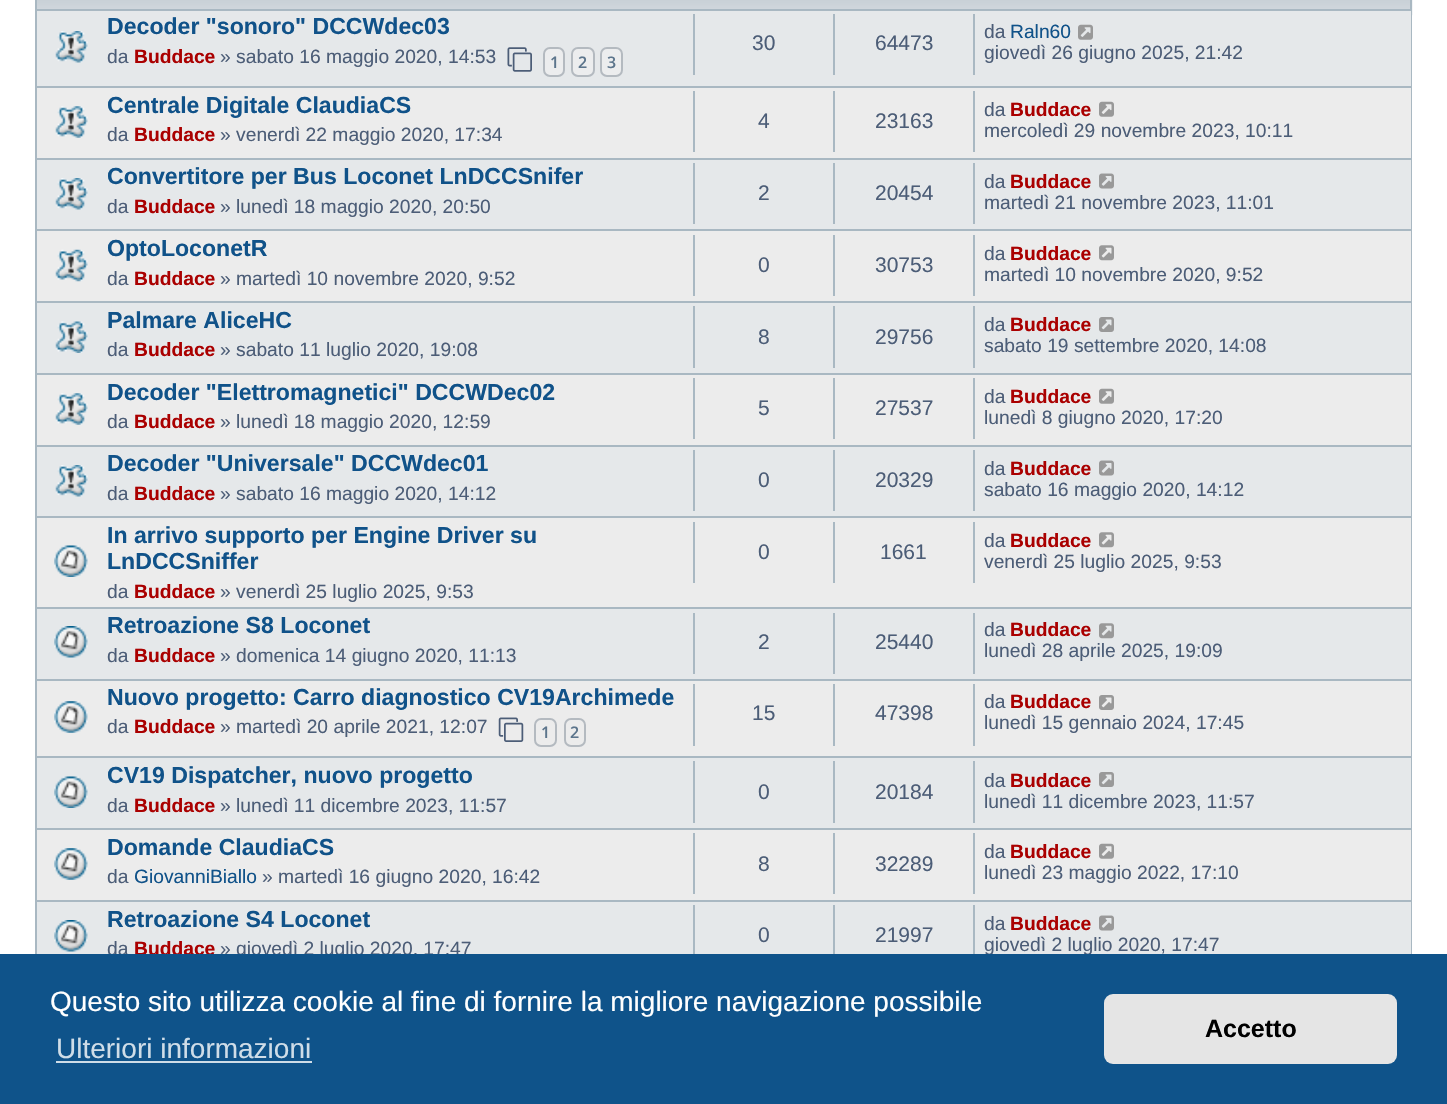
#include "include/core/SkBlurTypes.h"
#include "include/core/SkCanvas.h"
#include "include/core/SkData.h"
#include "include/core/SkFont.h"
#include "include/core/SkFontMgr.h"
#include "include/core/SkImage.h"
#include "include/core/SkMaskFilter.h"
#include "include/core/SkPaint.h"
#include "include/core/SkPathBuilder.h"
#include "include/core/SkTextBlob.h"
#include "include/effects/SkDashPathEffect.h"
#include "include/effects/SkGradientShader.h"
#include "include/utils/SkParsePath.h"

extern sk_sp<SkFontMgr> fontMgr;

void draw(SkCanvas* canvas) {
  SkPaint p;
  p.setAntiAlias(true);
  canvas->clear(SK_ColorWHITE);
  canvas->drawImageRect(SkImages::DeferredFromEncodedData(SkData::MakeFromFileName("images/1.png")), SkRect::MakeLTRB(37, 0, 1413, 16), SkSamplingOptions());
  p.setStyle(SkPaint::kStroke_Style);
  p.setStrokeWidth(2);
  p.setColor(SkColorSetRGB(169, 184, 194));
  canvas->drawRect(SkRect::MakeLTRB(36, -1, 1411, 972), p);
  p.setStyle(SkPaint::kFill_Style);
  p.setColor(SkColorSetRGB(229, 232, 234));
  canvas->drawRect(SkRect::MakeLTRB(37, 11, 1411, 86), p);
  p.setColor(SkColorSetRGB(169, 184, 194));
  canvas->drawRect(SkRect::MakeLTRB(37, 9, 1411, 11), p);
  canvas->drawImageRect(SkImages::DeferredFromEncodedData(SkData::MakeFromFileName("images/2.png")), SkRect::MakeLTRB(55, 31, 88, 63), SkSamplingOptions());
  canvas->drawImageRect(SkImages::DeferredFromEncodedData(SkData::MakeFromFileName("images/3.png")), SkRect::MakeLTRB(507, 47, 532, 72), SkSamplingOptions());
  p.setColor(SkColorSetRGB(236, 237, 238));
  canvas->drawRoundRect(SkRect::MakeLTRB(544, 48, 564, 76), 6, 6, p);
  p.setStyle(SkPaint::kStroke_Style);
  p.setColor(SkColorSetRGB(180, 186, 192));
  canvas->drawRoundRect(SkRect::MakeLTRB(544, 48, 564, 76), 6, 6, p);
  p.setStyle(SkPaint::kFill_Style);
  p.setColor(SkColorSetRGB(236, 237, 238));
  canvas->drawRoundRect(SkRect::MakeLTRB(572, 48, 594, 76), 6, 6, p);
  p.setStyle(SkPaint::kStroke_Style);
  p.setColor(SkColorSetRGB(180, 186, 192));
  canvas->drawRoundRect(SkRect::MakeLTRB(572, 48, 594, 76), 6, 6, p);
  p.setStyle(SkPaint::kFill_Style);
  p.setColor(SkColorSetRGB(236, 237, 238));
  canvas->drawRoundRect(SkRect::MakeLTRB(601, 48, 622, 76), 6, 6, p);
  p.setStyle(SkPaint::kStroke_Style);
  p.setColor(SkColorSetRGB(180, 186, 192));
  canvas->drawRoundRect(SkRect::MakeLTRB(601, 48, 622, 76), 6, 6, p);
  p.setStyle(SkPaint::kFill_Style);
  p.setColor(SkColorSetRGB(169, 184, 194));
  canvas->drawRect(SkRect::MakeLTRB(693, 14, 695, 75), p);
  canvas->drawRect(SkRect::MakeLTRB(833, 14, 835, 75), p);
  canvas->drawRect(SkRect::MakeLTRB(973, 14, 975, 75), p);
  canvas->drawImageRect(SkImages::DeferredFromEncodedData(SkData::MakeFromFileName("images/4.png")), SkRect::MakeLTRB(1078, 24, 1093, 40), SkSamplingOptions());
  p.setColor(SkColorSetRGB(236, 236, 236));
  canvas->drawRect(SkRect::MakeLTRB(37, 88, 1411, 158), p);
  p.setColor(SkColorSetRGB(169, 184, 194));
  canvas->drawRect(SkRect::MakeLTRB(37, 86, 1411, 88), p);
  canvas->drawImageRect(SkImages::DeferredFromEncodedData(SkData::MakeFromFileName("images/5.png")), SkRect::MakeLTRB(55, 106, 88, 138), SkSamplingOptions());
  canvas->drawRect(SkRect::MakeLTRB(693, 91, 695, 152), p);
  canvas->drawRect(SkRect::MakeLTRB(833, 91, 835, 152), p);
  canvas->drawRect(SkRect::MakeLTRB(973, 91, 975, 152), p);
  canvas->drawImageRect(SkImages::DeferredFromEncodedData(SkData::MakeFromFileName("images/6.png")), SkRect::MakeLTRB(1099, 101, 1114, 117), SkSamplingOptions());
  p.setColor(SkColorSetRGB(229, 232, 234));
  canvas->drawRect(SkRect::MakeLTRB(37, 160, 1411, 229), p);
  p.setColor(SkColorSetRGB(169, 184, 194));
  canvas->drawRect(SkRect::MakeLTRB(37, 158, 1411, 160), p);
  canvas->drawImageRect(SkImages::DeferredFromEncodedData(SkData::MakeFromFileName("images/2.png")), SkRect::MakeLTRB(55, 178, 88, 210), SkSamplingOptions());
  canvas->drawRect(SkRect::MakeLTRB(693, 163, 695, 224), p);
  canvas->drawRect(SkRect::MakeLTRB(833, 163, 835, 224), p);
  canvas->drawRect(SkRect::MakeLTRB(973, 163, 975, 224), p);
  canvas->drawImageRect(SkImages::DeferredFromEncodedData(SkData::MakeFromFileName("images/7.png")), SkRect::MakeLTRB(1099, 173, 1114, 189), SkSamplingOptions());
  p.setColor(SkColorSetRGB(236, 236, 236));
  canvas->drawRect(SkRect::MakeLTRB(37, 231, 1411, 301), p);
  p.setColor(SkColorSetRGB(169, 184, 194));
  canvas->drawRect(SkRect::MakeLTRB(37, 229, 1411, 231), p);
  canvas->drawImageRect(SkImages::DeferredFromEncodedData(SkData::MakeFromFileName("images/8.png")), SkRect::MakeLTRB(55, 249, 88, 282), SkSamplingOptions());
  canvas->drawRect(SkRect::MakeLTRB(693, 235, 695, 296), p);
  canvas->drawRect(SkRect::MakeLTRB(833, 235, 835, 296), p);
  canvas->drawRect(SkRect::MakeLTRB(973, 235, 975, 296), p);
  canvas->drawImageRect(SkImages::DeferredFromEncodedData(SkData::MakeFromFileName("images/9.png")), SkRect::MakeLTRB(1099, 245, 1114, 261), SkSamplingOptions());
  p.setColor(SkColorSetRGB(229, 232, 234));
  canvas->drawRect(SkRect::MakeLTRB(37, 303, 1411, 373), p);
  p.setColor(SkColorSetRGB(169, 184, 194));
  canvas->drawRect(SkRect::MakeLTRB(37, 301, 1411, 303), p);
  canvas->drawImageRect(SkImages::DeferredFromEncodedData(SkData::MakeFromFileName("images/10.png")), SkRect::MakeLTRB(55, 321, 88, 353), SkSamplingOptions());
  canvas->drawRect(SkRect::MakeLTRB(693, 306, 695, 368), p);
  canvas->drawRect(SkRect::MakeLTRB(833, 306, 835, 368), p);
  canvas->drawRect(SkRect::MakeLTRB(973, 306, 975, 368), p);
  canvas->drawImageRect(SkImages::DeferredFromEncodedData(SkData::MakeFromFileName("images/11.png")), SkRect::MakeLTRB(1099, 317, 1114, 332), SkSamplingOptions());
  p.setColor(SkColorSetRGB(236, 236, 236));
  canvas->drawRect(SkRect::MakeLTRB(37, 375, 1411, 445), p);
  p.setColor(SkColorSetRGB(169, 184, 194));
  canvas->drawRect(SkRect::MakeLTRB(37, 373, 1411, 375), p);
  canvas->drawImageRect(SkImages::DeferredFromEncodedData(SkData::MakeFromFileName("images/5.png")), SkRect::MakeLTRB(55, 393, 88, 425), SkSamplingOptions());
  canvas->drawRect(SkRect::MakeLTRB(693, 378, 695, 439), p);
  canvas->drawRect(SkRect::MakeLTRB(833, 378, 835, 439), p);
  canvas->drawRect(SkRect::MakeLTRB(973, 378, 975, 439), p);
  canvas->drawImageRect(SkImages::DeferredFromEncodedData(SkData::MakeFromFileName("images/12.png")), SkRect::MakeLTRB(1099, 388, 1114, 404), SkSamplingOptions());
  p.setColor(SkColorSetRGB(229, 232, 234));
  canvas->drawRect(SkRect::MakeLTRB(37, 447, 1411, 516), p);
  p.setColor(SkColorSetRGB(169, 184, 194));
  canvas->drawRect(SkRect::MakeLTRB(37, 445, 1411, 447), p);
  canvas->drawImageRect(SkImages::DeferredFromEncodedData(SkData::MakeFromFileName("images/2.png")), SkRect::MakeLTRB(55, 465, 88, 497), SkSamplingOptions());
  canvas->drawRect(SkRect::MakeLTRB(693, 450, 695, 511), p);
  canvas->drawRect(SkRect::MakeLTRB(833, 450, 835, 511), p);
  canvas->drawRect(SkRect::MakeLTRB(973, 450, 975, 511), p);
  canvas->drawImageRect(SkImages::DeferredFromEncodedData(SkData::MakeFromFileName("images/7.png")), SkRect::MakeLTRB(1099, 460, 1114, 476), SkSamplingOptions());
  p.setColor(SkColorSetRGB(236, 236, 236));
  canvas->drawRect(SkRect::MakeLTRB(37, 518, 1411, 607), p);
  p.setColor(SkColorSetRGB(169, 184, 194));
  canvas->drawRect(SkRect::MakeLTRB(37, 516, 1411, 518), p);
  canvas->drawImageRect(SkImages::DeferredFromEncodedData(SkData::MakeFromFileName("images/13.png")), SkRect::MakeLTRB(54, 545, 88, 577), SkSamplingOptions());
  canvas->drawRect(SkRect::MakeLTRB(693, 522, 695, 583), p);
  canvas->drawRect(SkRect::MakeLTRB(833, 522, 835, 583), p);
  canvas->drawRect(SkRect::MakeLTRB(973, 522, 975, 583), p);
  canvas->drawImageRect(SkImages::DeferredFromEncodedData(SkData::MakeFromFileName("images/14.png")), SkRect::MakeLTRB(1099, 532, 1114, 548), SkSamplingOptions());
  p.setColor(SkColorSetRGB(229, 232, 234));
  canvas->drawRect(SkRect::MakeLTRB(37, 609, 1411, 679), p);
  p.setColor(SkColorSetRGB(169, 184, 194));
  canvas->drawRect(SkRect::MakeLTRB(37, 607, 1411, 609), p);
  canvas->drawImageRect(SkImages::DeferredFromEncodedData(SkData::MakeFromFileName("images/15.png")), SkRect::MakeLTRB(54, 626, 88, 658), SkSamplingOptions());
  canvas->drawRect(SkRect::MakeLTRB(693, 613, 695, 674), p);
  canvas->drawRect(SkRect::MakeLTRB(833, 613, 835, 674), p);
  canvas->drawRect(SkRect::MakeLTRB(973, 613, 975, 674), p);
  canvas->drawImageRect(SkImages::DeferredFromEncodedData(SkData::MakeFromFileName("images/16.png")), SkRect::MakeLTRB(1099, 623, 1114, 639), SkSamplingOptions());
  p.setColor(SkColorSetRGB(236, 236, 236));
  canvas->drawRect(SkRect::MakeLTRB(37, 681, 1411, 756), p);
  p.setColor(SkColorSetRGB(169, 184, 194));
  canvas->drawRect(SkRect::MakeLTRB(37, 679, 1411, 681), p);
  canvas->drawImageRect(SkImages::DeferredFromEncodedData(SkData::MakeFromFileName("images/17.png")), SkRect::MakeLTRB(54, 701, 88, 733), SkSamplingOptions());
  canvas->drawImageRect(SkImages::DeferredFromEncodedData(SkData::MakeFromFileName("images/18.png")), SkRect::MakeLTRB(498, 717, 524, 742), SkSamplingOptions());
  p.setStyle(SkPaint::kStroke_Style);
  p.setColor(SkColorSetRGB(180, 186, 192));
  canvas->drawRoundRect(SkRect::MakeLTRB(535, 719, 556, 746), 6, 6, p);
  canvas->drawRoundRect(SkRect::MakeLTRB(565, 719, 585, 746), 6, 6, p);
  p.setStyle(SkPaint::kFill_Style);
  p.setColor(SkColorSetRGB(169, 184, 194));
  canvas->drawRect(SkRect::MakeLTRB(693, 684, 695, 746), p);
  canvas->drawRect(SkRect::MakeLTRB(833, 684, 835, 746), p);
  canvas->drawRect(SkRect::MakeLTRB(973, 684, 975, 746), p);
  canvas->drawImageRect(SkImages::DeferredFromEncodedData(SkData::MakeFromFileName("images/19.png")), SkRect::MakeLTRB(1099, 695, 1114, 710), SkSamplingOptions());
  p.setColor(SkColorSetRGB(229, 232, 234));
  canvas->drawRect(SkRect::MakeLTRB(37, 758, 1411, 828), p);
  p.setColor(SkColorSetRGB(169, 184, 194));
  canvas->drawRect(SkRect::MakeLTRB(37, 756, 1411, 758), p);
  canvas->drawImageRect(SkImages::DeferredFromEncodedData(SkData::MakeFromFileName("images/20.png")), SkRect::MakeLTRB(54, 776, 88, 808), SkSamplingOptions());
  canvas->drawRect(SkRect::MakeLTRB(693, 761, 695, 823), p);
  canvas->drawRect(SkRect::MakeLTRB(833, 761, 835, 823), p);
  canvas->drawRect(SkRect::MakeLTRB(973, 761, 975, 823), p);
  canvas->drawImageRect(SkImages::DeferredFromEncodedData(SkData::MakeFromFileName("images/11.png")), SkRect::MakeLTRB(1099, 772, 1114, 787), SkSamplingOptions());
  p.setColor(SkColorSetRGB(236, 236, 236));
  canvas->drawRect(SkRect::MakeLTRB(37, 830, 1411, 900), p);
  p.setColor(SkColorSetRGB(169, 184, 194));
  canvas->drawRect(SkRect::MakeLTRB(37, 828, 1411, 830), p);
  canvas->drawImageRect(SkImages::DeferredFromEncodedData(SkData::MakeFromFileName("images/21.png")), SkRect::MakeLTRB(54, 848, 88, 880), SkSamplingOptions());
  canvas->drawRect(SkRect::MakeLTRB(693, 833, 695, 894), p);
  canvas->drawRect(SkRect::MakeLTRB(833, 833, 835, 894), p);
  canvas->drawRect(SkRect::MakeLTRB(973, 833, 975, 894), p);
  canvas->drawImageRect(SkImages::DeferredFromEncodedData(SkData::MakeFromFileName("images/12.png")), SkRect::MakeLTRB(1099, 843, 1114, 859), SkSamplingOptions());
  p.setColor(SkColorSetRGB(229, 232, 234));
  canvas->drawRect(SkRect::MakeLTRB(37, 902, 1411, 954), p);
  p.setColor(SkColorSetRGB(169, 184, 194));
  canvas->drawRect(SkRect::MakeLTRB(37, 900, 1411, 902), p);
  canvas->drawImageRect(SkImages::DeferredFromEncodedData(SkData::MakeFromFileName("images/22.png")), SkRect::MakeLTRB(54, 920, 88, 952), SkSamplingOptions());
  canvas->drawRect(SkRect::MakeLTRB(693, 905, 695, 954), p);
  canvas->drawRect(SkRect::MakeLTRB(833, 905, 835, 954), p);
  canvas->drawRect(SkRect::MakeLTRB(973, 905, 975, 954), p);
  canvas->drawImageRect(SkImages::DeferredFromEncodedData(SkData::MakeFromFileName("images/23.png")), SkRect::MakeLTRB(1099, 915, 1114, 931), SkSamplingOptions());
  SkFont font1(fontMgr->matchFamilyStyle("Liberation Sans", SkFontStyle::Bold()), 23.1f);
  font1.setSubpixel(true);
  p.setColor(SkColorSetRGB(16, 82, 137));
  canvas->drawString("Decoder \"sonoro\" DCCWdec03", 107, 34, font1, p);
  SkFont font2(fontMgr->matchFamilyStyle("Liberation Sans", SkFontStyle::Normal()), 19.25f);
  font2.setSubpixel(true);
  p.setColor(SkColorSetRGB(76, 93, 119));
  canvas->drawString("da", 107, 63, font2, p);
  SkFont font3(fontMgr->matchFamilyStyle("Liberation Sans", SkFontStyle::Bold()), 19.25f);
  font3.setSubpixel(true);
  p.setColor(SkColorSetRGB(170, 0, 0));
  canvas->drawString("Buddace", 134, 63, font3, p);
  p.setColor(SkColorSetRGB(76, 93, 119));
  canvas->drawString("» sabato 16 maggio 2020, 14:53", 220, 63, font2, p);
  SkFont font4(fontMgr->matchFamilyStyle("Open Sans", SkFontStyle(600, SkFontStyle::kNormal_Width, SkFontStyle::kUpright_Slant)), 16);
  font4.setSubpixel(true);
  p.setColor(SkColorSetRGB(92, 117, 140));
  canvas->drawString("1", 550, 68, font4, p);
  canvas->drawString("2", 578, 68, font4, p);
  canvas->drawString("3", 607, 68, font4, p);
  SkFont font5(fontMgr->matchFamilyStyle("Liberation Sans", SkFontStyle::Normal()), 21);
  font5.setSubpixel(true);
  p.setColor(SkColorSetRGB(76, 93, 119));
  canvas->drawString("30", 752, 50, font5, p);
  canvas->drawString("64473", 875, 50, font5, p);
  canvas->drawString("da", 984, 38, font2, p);
  p.setColor(SkColorSetRGB(16, 82, 137));
  canvas->drawString("Raln60", 1010, 38, font2, p);
  p.setColor(SkColorSetRGB(76, 93, 119));
  canvas->drawString("giovedì 26 giugno 2025, 21:42", 984, 59, font2, p);
  p.setColor(SkColorSetRGB(16, 82, 137));
  canvas->drawString("Centrale Digitale ClaudiaCS", 107, 113, font1, p);
  p.setColor(SkColorSetRGB(76, 93, 119));
  canvas->drawString("da", 107, 141, font2, p);
  p.setColor(SkColorSetRGB(170, 0, 0));
  canvas->drawString("Buddace", 134, 141, font3, p);
  p.setColor(SkColorSetRGB(76, 93, 119));
  canvas->drawString("» venerdì 22 maggio 2020, 17:34", 220, 141, font2, p);
  canvas->drawString("4", 758, 128, font5, p);
  canvas->drawString("23163", 875, 128, font5, p);
  canvas->drawString("da", 984, 116, font2, p);
  p.setColor(SkColorSetRGB(170, 0, 0));
  canvas->drawString("Buddace", 1010, 116, font3, p);
  p.setColor(SkColorSetRGB(76, 93, 119));
  canvas->drawString("mercoledì 29 novembre 2023, 10:11", 984, 137, font2, p);
  p.setColor(SkColorSetRGB(16, 82, 137));
  canvas->drawString("Convertitore per Bus Loconet LnDCCSnifer", 107, 184, font1, p);
  p.setColor(SkColorSetRGB(76, 93, 119));
  canvas->drawString("da", 107, 213, font2, p);
  p.setColor(SkColorSetRGB(170, 0, 0));
  canvas->drawString("Buddace", 134, 213, font3, p);
  p.setColor(SkColorSetRGB(76, 93, 119));
  canvas->drawString("» lunedì 18 maggio 2020, 20:50", 220, 213, font2, p);
  canvas->drawString("2", 758, 200, font5, p);
  canvas->drawString("20454", 875, 200, font5, p);
  canvas->drawString("da", 984, 188, font2, p);
  p.setColor(SkColorSetRGB(170, 0, 0));
  canvas->drawString("Buddace", 1010, 188, font3, p);
  p.setColor(SkColorSetRGB(76, 93, 119));
  canvas->drawString("martedì 21 novembre 2023, 11:01", 984, 209, font2, p);
  p.setColor(SkColorSetRGB(16, 82, 137));
  canvas->drawString("OptoLoconetR", 107, 256, font1, p);
  p.setColor(SkColorSetRGB(76, 93, 119));
  canvas->drawString("da", 107, 285, font2, p);
  p.setColor(SkColorSetRGB(170, 0, 0));
  canvas->drawString("Buddace", 134, 285, font3, p);
  p.setColor(SkColorSetRGB(76, 93, 119));
  canvas->drawString("» martedì 10 novembre 2020, 9:52", 220, 285, font2, p);
  canvas->drawString("0", 758, 272, font5, p);
  canvas->drawString("30753", 875, 272, font5, p);
  canvas->drawString("da", 984, 260, font2, p);
  p.setColor(SkColorSetRGB(170, 0, 0));
  canvas->drawString("Buddace", 1010, 260, font3, p);
  p.setColor(SkColorSetRGB(76, 93, 119));
  canvas->drawString("martedì 10 novembre 2020, 9:52", 984, 281, font2, p);
  p.setColor(SkColorSetRGB(16, 82, 137));
  canvas->drawString("Palmare AliceHC", 107, 328, font1, p);
  p.setColor(SkColorSetRGB(76, 93, 119));
  canvas->drawString("da", 107, 356, font2, p);
  p.setColor(SkColorSetRGB(170, 0, 0));
  canvas->drawString("Buddace", 134, 356, font3, p);
  p.setColor(SkColorSetRGB(76, 93, 119));
  canvas->drawString("» sabato 11 luglio 2020, 19:08", 220, 356, font2, p);
  canvas->drawString("8", 758, 344, font5, p);
  canvas->drawString("29756", 875, 344, font5, p);
  canvas->drawString("da", 984, 331, font2, p);
  p.setColor(SkColorSetRGB(170, 0, 0));
  canvas->drawString("Buddace", 1010, 331, font3, p);
  p.setColor(SkColorSetRGB(76, 93, 119));
  canvas->drawString("sabato 19 settembre 2020, 14:08", 984, 352, font2, p);
  p.setColor(SkColorSetRGB(16, 82, 137));
  canvas->drawString("Decoder \"Elettromagnetici\" DCCWDec02", 107, 400, font1, p);
  p.setColor(SkColorSetRGB(76, 93, 119));
  canvas->drawString("da", 107, 428, font2, p);
  p.setColor(SkColorSetRGB(170, 0, 0));
  canvas->drawString("Buddace", 134, 428, font3, p);
  p.setColor(SkColorSetRGB(76, 93, 119));
  canvas->drawString("» lunedì 18 maggio 2020, 12:59", 220, 428, font2, p);
  canvas->drawString("5", 758, 415, font5, p);
  canvas->drawString("27537", 875, 415, font5, p);
  canvas->drawString("da", 984, 403, font2, p);
  p.setColor(SkColorSetRGB(170, 0, 0));
  canvas->drawString("Buddace", 1010, 403, font3, p);
  p.setColor(SkColorSetRGB(76, 93, 119));
  canvas->drawString("lunedì 8 giugno 2020, 17:20", 984, 424, font2, p);
  p.setColor(SkColorSetRGB(16, 82, 137));
  canvas->drawString("Decoder \"Universale\" DCCWdec01", 107, 471, font1, p);
  p.setColor(SkColorSetRGB(76, 93, 119));
  canvas->drawString("da", 107, 500, font2, p);
  p.setColor(SkColorSetRGB(170, 0, 0));
  canvas->drawString("Buddace", 134, 500, font3, p);
  p.setColor(SkColorSetRGB(76, 93, 119));
  canvas->drawString("» sabato 16 maggio 2020, 14:12", 220, 500, font2, p);
  canvas->drawString("0", 758, 487, font5, p);
  canvas->drawString("20329", 875, 487, font5, p);
  canvas->drawString("da", 984, 475, font2, p);
  p.setColor(SkColorSetRGB(170, 0, 0));
  canvas->drawString("Buddace", 1010, 475, font3, p);
  p.setColor(SkColorSetRGB(76, 93, 119));
  canvas->drawString("sabato 16 maggio 2020, 14:12", 984, 496, font2, p);
  p.setColor(SkColorSetRGB(16, 82, 137));
  canvas->drawString("In arrivo supporto per Engine Driver su", 107, 543, font1, p);
  canvas->drawString("LnDCCSniffer", 107, 569, font1, p);
  p.setColor(SkColorSetRGB(76, 93, 119));
  canvas->drawString("da", 107, 598, font2, p);
  p.setColor(SkColorSetRGB(170, 0, 0));
  canvas->drawString("Buddace", 134, 598, font3, p);
  p.setColor(SkColorSetRGB(76, 93, 119));
  canvas->drawString("» venerdì 25 luglio 2025, 9:53", 220, 598, font2, p);
  canvas->drawString("0", 758, 559, font5, p);
  canvas->drawString("1661", 880, 559, font5, p);
  canvas->drawString("da", 984, 547, font2, p);
  p.setColor(SkColorSetRGB(170, 0, 0));
  canvas->drawString("Buddace", 1010, 547, font3, p);
  p.setColor(SkColorSetRGB(76, 93, 119));
  canvas->drawString("venerdì 25 luglio 2025, 9:53", 984, 568, font2, p);
  p.setColor(SkColorSetRGB(16, 82, 137));
  canvas->drawString("Retroazione S8 Loconet", 107, 633, font1, p);
  p.setColor(SkColorSetRGB(76, 93, 119));
  canvas->drawString("da", 107, 662, font2, p);
  p.setColor(SkColorSetRGB(170, 0, 0));
  canvas->drawString("Buddace", 134, 662, font3, p);
  p.setColor(SkColorSetRGB(76, 93, 119));
  canvas->drawString("» domenica 14 giugno 2020, 11:13", 220, 662, font2, p);
  canvas->drawString("2", 758, 649, font5, p);
  canvas->drawString("25440", 875, 649, font5, p);
  canvas->drawString("da", 984, 636, font2, p);
  p.setColor(SkColorSetRGB(170, 0, 0));
  canvas->drawString("Buddace", 1010, 636, font3, p);
  p.setColor(SkColorSetRGB(76, 93, 119));
  canvas->drawString("lunedì 28 aprile 2025, 19:09", 984, 657, font2, p);
  p.setColor(SkColorSetRGB(16, 82, 137));
  canvas->drawString("Nuovo progetto: Carro diagnostico CV19Archimede", 107, 705, font1, p);
  p.setColor(SkColorSetRGB(76, 93, 119));
  canvas->drawString("da", 107, 733, font2, p);
  p.setColor(SkColorSetRGB(170, 0, 0));
  canvas->drawString("Buddace", 134, 733, font3, p);
  p.setColor(SkColorSetRGB(76, 93, 119));
  canvas->drawString("» martedì 20 aprile 2021, 12:07", 220, 733, font2, p);
  p.setColor(SkColorSetRGB(92, 117, 140));
  canvas->drawString("1", 541, 738, font4, p);
  canvas->drawString("2", 570, 738, font4, p);
  p.setColor(SkColorSetRGB(76, 93, 119));
  canvas->drawString("15", 752, 720, font5, p);
  canvas->drawString("47398", 875, 720, font5, p);
  canvas->drawString("da", 984, 708, font2, p);
  p.setColor(SkColorSetRGB(170, 0, 0));
  canvas->drawString("Buddace", 1010, 708, font3, p);
  p.setColor(SkColorSetRGB(76, 93, 119));
  canvas->drawString("lunedì 15 gennaio 2024, 17:45", 984, 729, font2, p);
  p.setColor(SkColorSetRGB(16, 82, 137));
  canvas->drawString("CV19 Dispatcher, nuovo progetto", 107, 783, font1, p);
  p.setColor(SkColorSetRGB(76, 93, 119));
  canvas->drawString("da", 107, 812, font2, p);
  p.setColor(SkColorSetRGB(170, 0, 0));
  canvas->drawString("Buddace", 134, 812, font3, p);
  p.setColor(SkColorSetRGB(76, 93, 119));
  canvas->drawString("» lunedì 11 dicembre 2023, 11:57", 220, 812, font2, p);
  canvas->drawString("0", 758, 799, font5, p);
  canvas->drawString("20184", 875, 799, font5, p);
  canvas->drawString("da", 984, 787, font2, p);
  p.setColor(SkColorSetRGB(170, 0, 0));
  canvas->drawString("Buddace", 1010, 787, font3, p);
  p.setColor(SkColorSetRGB(76, 93, 119));
  canvas->drawString("lunedì 11 dicembre 2023, 11:57", 984, 808, font2, p);
  p.setColor(SkColorSetRGB(16, 82, 137));
  canvas->drawString("Domande ClaudiaCS", 107, 855, font1, p);
  p.setColor(SkColorSetRGB(76, 93, 119));
  canvas->drawString("da", 107, 883, font2, p);
  p.setColor(SkColorSetRGB(16, 82, 137));
  canvas->drawString("GiovanniBiallo", 134, 883, font2, p);
  p.setColor(SkColorSetRGB(76, 93, 119));
  canvas->drawString("» martedì 16 giugno 2020, 16:42", 262, 883, font2, p);
  canvas->drawString("8", 758, 871, font5, p);
  canvas->drawString("32289", 875, 871, font5, p);
  canvas->drawString("da", 984, 858, font2, p);
  p.setColor(SkColorSetRGB(170, 0, 0));
  canvas->drawString("Buddace", 1010, 858, font3, p);
  p.setColor(SkColorSetRGB(76, 93, 119));
  canvas->drawString("lunedì 23 maggio 2022, 17:10", 984, 879, font2, p);
  p.setColor(SkColorSetRGB(16, 82, 137));
  canvas->drawString("Retroazione S4 Loconet", 107, 927, font1, p);
  p.setColor(SkColorSetRGB(76, 93, 119));
  canvas->drawString("da", 107, 955, font2, p);
  p.setColor(SkColorSetRGB(170, 0, 0));
  canvas->drawString("Buddace", 134, 955, font3, p);
  p.setColor(SkColorSetRGB(76, 93, 119));
  canvas->drawString("» giovedì 2 luglio 2020, 17:47", 220, 955, font2, p);
  canvas->drawString("0", 758, 942, font5, p);
  canvas->drawString("21997", 875, 942, font5, p);
  canvas->drawString("da", 984, 930, font2, p);
  p.setColor(SkColorSetRGB(170, 0, 0));
  canvas->drawString("Buddace", 1010, 930, font3, p);
  p.setColor(SkColorSetRGB(76, 93, 119));
  canvas->drawString("giovedì 2 luglio 2020, 17:47", 984, 951, font2, p);
  p.setColor(SkColorSetRGB(15, 83, 138));
  canvas->drawRect(SkRect::MakeLTRB(0, 954, 1447, 1104), p);
  SkFont font6(fontMgr->matchFamilyStyle("Liberation Sans", SkFontStyle::Normal()), 28);
  font6.setSubpixel(true);
  p.setColor(SK_ColorWHITE);
  canvas->drawString("Questo sito utilizza cookie al fine di fornire la migliore navigazione possibile", 50, 1011, font6, p);
  p.setColor(SkColorSetRGB(207, 221, 232));
  canvas->drawString("Ulteriori informazioni", 56, 1058, font6, p);
  canvas->drawRect(SkRect::MakeLTRB(56, 1061, 312, 1063), p);
  p.setColor(SkColorSetRGB(229, 229, 229));
  canvas->drawRoundRect(SkRect::MakeLTRB(1104, 994, 1397, 1064), 9, 9, p);
  SkFont font7(fontMgr->matchFamilyStyle("Liberation Sans", SkFontStyle::Bold()), 25);
  font7.setSubpixel(true);
  p.setColor(SK_ColorBLACK);
  canvas->drawString("Accetto", 1205, 1037, font7, p);
}
